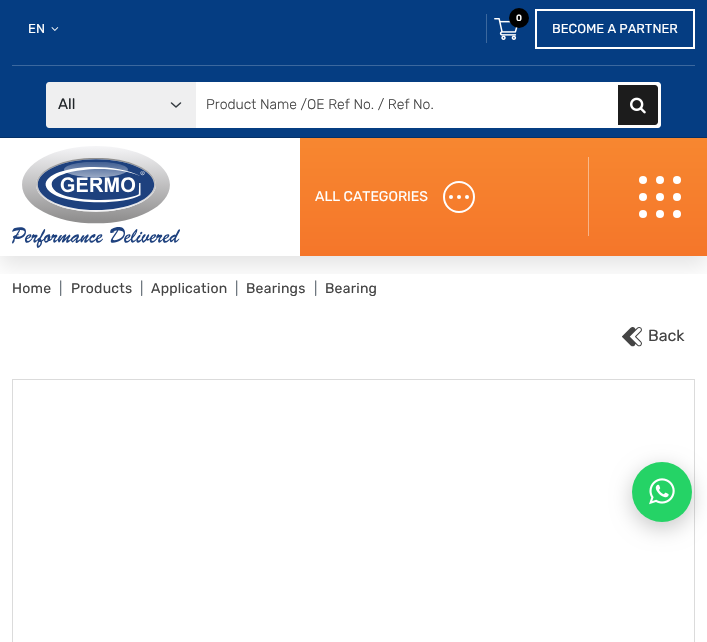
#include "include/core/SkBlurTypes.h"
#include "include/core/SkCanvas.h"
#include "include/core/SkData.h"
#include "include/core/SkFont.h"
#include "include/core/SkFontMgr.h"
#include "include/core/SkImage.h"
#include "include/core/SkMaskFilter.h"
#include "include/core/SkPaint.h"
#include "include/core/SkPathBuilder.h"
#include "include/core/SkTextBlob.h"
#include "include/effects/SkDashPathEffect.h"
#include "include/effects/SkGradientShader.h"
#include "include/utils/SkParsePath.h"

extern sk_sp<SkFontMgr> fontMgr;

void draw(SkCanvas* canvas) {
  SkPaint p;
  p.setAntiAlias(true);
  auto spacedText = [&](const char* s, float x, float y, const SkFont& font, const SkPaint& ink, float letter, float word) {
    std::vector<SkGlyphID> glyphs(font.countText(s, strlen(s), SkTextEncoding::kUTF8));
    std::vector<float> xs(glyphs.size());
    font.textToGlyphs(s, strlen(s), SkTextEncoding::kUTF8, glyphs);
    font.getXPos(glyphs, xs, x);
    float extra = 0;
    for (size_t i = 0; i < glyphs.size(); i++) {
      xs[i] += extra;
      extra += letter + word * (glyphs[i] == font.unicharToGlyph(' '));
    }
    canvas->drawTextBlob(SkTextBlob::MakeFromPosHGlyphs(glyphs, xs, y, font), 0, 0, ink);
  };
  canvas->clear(SK_ColorWHITE);
  p.setColor(SkColorSetRGB(5, 61, 130));
  canvas->drawRect(SkRect::MakeLTRB(0, 0, 707, 137), p);
  p.setColor(SkColorSetRGB(4, 49, 104));
  canvas->drawRect(SkRect::MakeLTRB(0, 137, 707, 138), p);
  canvas->drawImageRect(SkImages::DeferredFromEncodedData(SkData::MakeFromFileName("images/1.png")), SkRect::MakeLTRB(51, 27, 59, 31), SkSamplingOptions());
  p.setColor(SkColorSetRGB(60, 104, 158));
  canvas->drawRect(SkRect::MakeLTRB(486, 14, 487, 43), p);
  canvas->drawImageRect(SkImages::DeferredFromEncodedData(SkData::MakeFromFileName("images/2.png")), SkRect::MakeLTRB(494, 18, 518, 40), SkSamplingOptions());
  p.setColor(SK_ColorBLACK);
  canvas->drawCircle(519, 18, 10, p);
  p.setStyle(SkPaint::kStroke_Style);
  p.setStrokeWidth(2);
  p.setColor(SK_ColorWHITE);
  canvas->drawRect(SkRect::MakeLTRB(536, 10, 694, 48), p);
  p.setStyle(SkPaint::kFill_Style);
  p.setColor(SkColorSetRGB(60, 104, 158));
  canvas->drawRect(SkRect::MakeLTRB(12, 65, 695, 66), p);
  p.setColor(SkColorSetRGB(239, 239, 240));
  canvas->drawPath(SkPathBuilder().moveTo(49, 82).lineTo(196, 82).lineTo(196, 128).lineTo(49, 128).cubicTo(47.5f, 128, 46, 126.5f, 46, 125).lineTo(46, 85).cubicTo(46, 83.5f, 47.5f, 82, 49, 82).close().detach(), p);
  p.setStyle(SkPaint::kStroke_Style);
  p.setStrokeWidth(1.5f);
  p.setStrokeCap(SkPaint::kRound_Cap);
  p.setStrokeJoin(SkPaint::kRound_Join);
  p.setColor(SkColorSetRGB(52, 58, 64));
  canvas->drawPath(SkPathBuilder().moveTo(171.5f, 103).lineTo(176, 107).lineTo(180.5f, 103).detach(), p);
  p.setStyle(SkPaint::kFill_Style);
  p.setColor(SK_ColorWHITE);
  canvas->drawPath(SkPathBuilder().moveTo(196, 82).lineTo(658, 82).cubicTo(659.5f, 82, 661, 83.5f, 661, 85).lineTo(661, 125).cubicTo(661, 126.5f, 659.5f, 128, 658, 128).lineTo(196, 128).close().detach(), p);
  p.setColor(SkColorSetRGB(28, 28, 28));
  canvas->drawPath(SkPathBuilder().moveTo(618, 85).lineTo(655, 85).cubicTo(656.5f, 85, 658, 86.5f, 658, 88).lineTo(658, 122).cubicTo(658, 123.5f, 656.5f, 125, 655, 125).lineTo(618, 125).close().detach(), p);
  canvas->drawImageRect(SkImages::DeferredFromEncodedData(SkData::MakeFromFileName("images/3.png")), SkRect::MakeLTRB(630, 97, 646, 114), SkSamplingOptions());
  canvas->save();
  canvas->clipRect(SkRect::MakeLTRB(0, 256, 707, 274));
  p.setColor(SkColorSetARGB(26, 0, 0, 0));
  p.setMaskFilter(SkMaskFilter::MakeBlur(kNormal_SkBlurStyle, 10));
  canvas->drawRect(SkRect::MakeLTRB(0, 148, 707, 266), p);
  p.setMaskFilter(nullptr);
  canvas->restore();
  canvas->drawImageRect(SkImages::DeferredFromEncodedData(SkData::MakeFromFileName("images/4.png")), SkRect::MakeLTRB(12, 146, 180, 248), SkSamplingOptions());
  {
    const SkColor colors[] = {SkColorSetRGB(247, 135, 48), SkColorSetRGB(245, 118, 42)};
    const float stops[] = {0, 1};
    const SkPoint ends[] = {{654, 138}, {654, 256}};
    p.setShader(SkGradientShader::MakeLinear(ends, colors, stops, 2, SkTileMode::kClamp));
    p.setAlpha(255);
  }
  canvas->drawRect(SkRect::MakeLTRB(300, 138, 707, 256), p);
  {
    const SkColor colors[] = {SkColorSetRGB(248, 187, 139), SkColorSetRGB(247, 177, 136)};
    const float stops[] = {0, 1};
    const SkPoint ends[] = {{654, 138}, {654, 256}};
    p.setShader(SkGradientShader::MakeLinear(ends, colors, stops, 2, SkTileMode::kClamp));
    p.setAlpha(255);
  }
  canvas->drawRect(SkRect::MakeLTRB(588, 157, 589, 236), p);
  p.setStyle(SkPaint::kStroke_Style);
  p.setStrokeWidth(2);
  p.setStrokeCap(SkPaint::kButt_Cap);
  p.setStrokeJoin(SkPaint::kMiter_Join);
  p.setShader(nullptr);
  p.setColor(SK_ColorWHITE);
  canvas->drawCircle(459, 197, 15, p);
  p.setStyle(SkPaint::kFill_Style);
  canvas->drawCircle(451, 197, 2, p);
  canvas->drawCircle(459, 197, 2, p);
  canvas->drawCircle(467, 197, 2, p);
  canvas->drawCircle(677, 214, 4, p);
  canvas->drawCircle(660, 214, 4, p);
  canvas->drawCircle(643, 214, 4, p);
  canvas->drawCircle(677, 197, 4, p);
  canvas->drawCircle(643, 197, 4, p);
  canvas->drawCircle(677, 180, 4, p);
  canvas->drawCircle(660, 180, 4, p);
  canvas->drawCircle(643, 180, 4, p);
  canvas->drawCircle(660, 197, 4, p);
  canvas->drawImageRect(SkImages::DeferredFromEncodedData(SkData::MakeFromFileName("images/5.png")), SkRect::MakeLTRB(622, 327, 642, 347), SkSamplingOptions());
  p.setStyle(SkPaint::kStroke_Style);
  p.setStrokeWidth(1);
  p.setColor(SkColorSetRGB(219, 219, 219));
  canvas->drawRect(SkRect::MakeLTRB(12.5f, 379.5f, 694.5f, 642.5f), p);
  p.setStyle(SkPaint::kFill_Style);
  p.setColor(SkColorSetARGB(51, 0, 0, 0));
  p.setMaskFilter(SkMaskFilter::MakeBlur(kNormal_SkBlurStyle, 10));
  canvas->drawRoundRect(SkRect::MakeLTRB(631, 467, 693, 529), 31, 31, p);
  p.setMaskFilter(nullptr);
  p.setColor(SkColorSetRGB(37, 211, 102));
  canvas->drawCircle(662, 492, 30, p);
  canvas->drawImageRect(SkImages::DeferredFromEncodedData(SkData::MakeFromFileName("images/6.png")), SkRect::MakeLTRB(649, 478, 675, 505), SkSamplingOptions());
  SkFont font1(fontMgr->matchFamilyStyle("Rubik", SkFontStyle::Normal()), 13);
  font1.setSubpixel(true);
  p.setColor(SK_ColorWHITE);
  canvas->drawString("EN", 28, 33, font1, p);
  SkFont font2(fontMgr->matchFamilyStyle("Rubik", SkFontStyle(500, SkFontStyle::kNormal_Width, SkFontStyle::kUpright_Slant)), 9);
  font2.setSubpixel(true);
  canvas->drawString("0", 516, 21, font2, p);
  canvas->drawString("BECOME A PARTNER", 552, 33, font1, p);
  SkFont font3(fontMgr->matchFamilyStyle("Rubik", SkFontStyle::Normal()), 15);
  font3.setSubpixel(true);
  p.setColor(SkColorSetRGB(33, 37, 41));
  canvas->drawString("All", 58, 109, font3, p);
  SkFont font4(fontMgr->matchFamilyStyle("Rubik", SkFontStyle(300, SkFontStyle::kNormal_Width, SkFontStyle::kUpright_Slant)), 14);
  font4.setSubpixel(true);
  p.setColor(SkColorSetRGB(68, 68, 68));
  canvas->drawString("Product Name /OE Ref No. / Ref No.", 206, 109, font4, p);
  SkFont font5(fontMgr->matchFamilyStyle("Rubik", SkFontStyle::Normal()), 14);
  font5.setSubpixel(true);
  p.setColor(SK_ColorWHITE);
  canvas->drawString("ALL CATEGORIES", 315, 201, font5, p);
  p.setColor(SkColorSetRGB(68, 68, 68));
  spacedText("Home", 12, 293, font5, p, 0.25f, 0);
  p.setColor(SkColorSetRGB(108, 117, 125));
  spacedText("|", 59, 293, font5, p, 0.25f, 0);
  p.setColor(SkColorSetRGB(68, 68, 68));
  spacedText("Products", 71, 293, font5, p, 0.25f, 0);
  p.setColor(SkColorSetRGB(108, 117, 125));
  spacedText("|", 140, 293, font5, p, 0.25f, 0);
  p.setColor(SkColorSetRGB(68, 68, 68));
  spacedText("Application", 151, 293, font5, p, 0.25f, 0);
  p.setColor(SkColorSetRGB(108, 117, 125));
  spacedText("|", 235, 293, font5, p, 0.25f, 0);
  p.setColor(SkColorSetRGB(68, 68, 68));
  spacedText("Bearings", 246, 293, font5, p, 0.25f, 0);
  p.setColor(SkColorSetRGB(108, 117, 125));
  spacedText("|", 314, 293, font5, p, 0.25f, 0);
  p.setColor(SkColorSetRGB(68, 68, 68));
  spacedText("Bearing", 325, 293, font5, p, 0.25f, 0);
  SkFont font6(fontMgr->matchFamilyStyle("Rubik", SkFontStyle::Normal()), 16);
  font6.setSubpixel(true);
  canvas->drawString("Back", 648, 341, font6, p);
}
